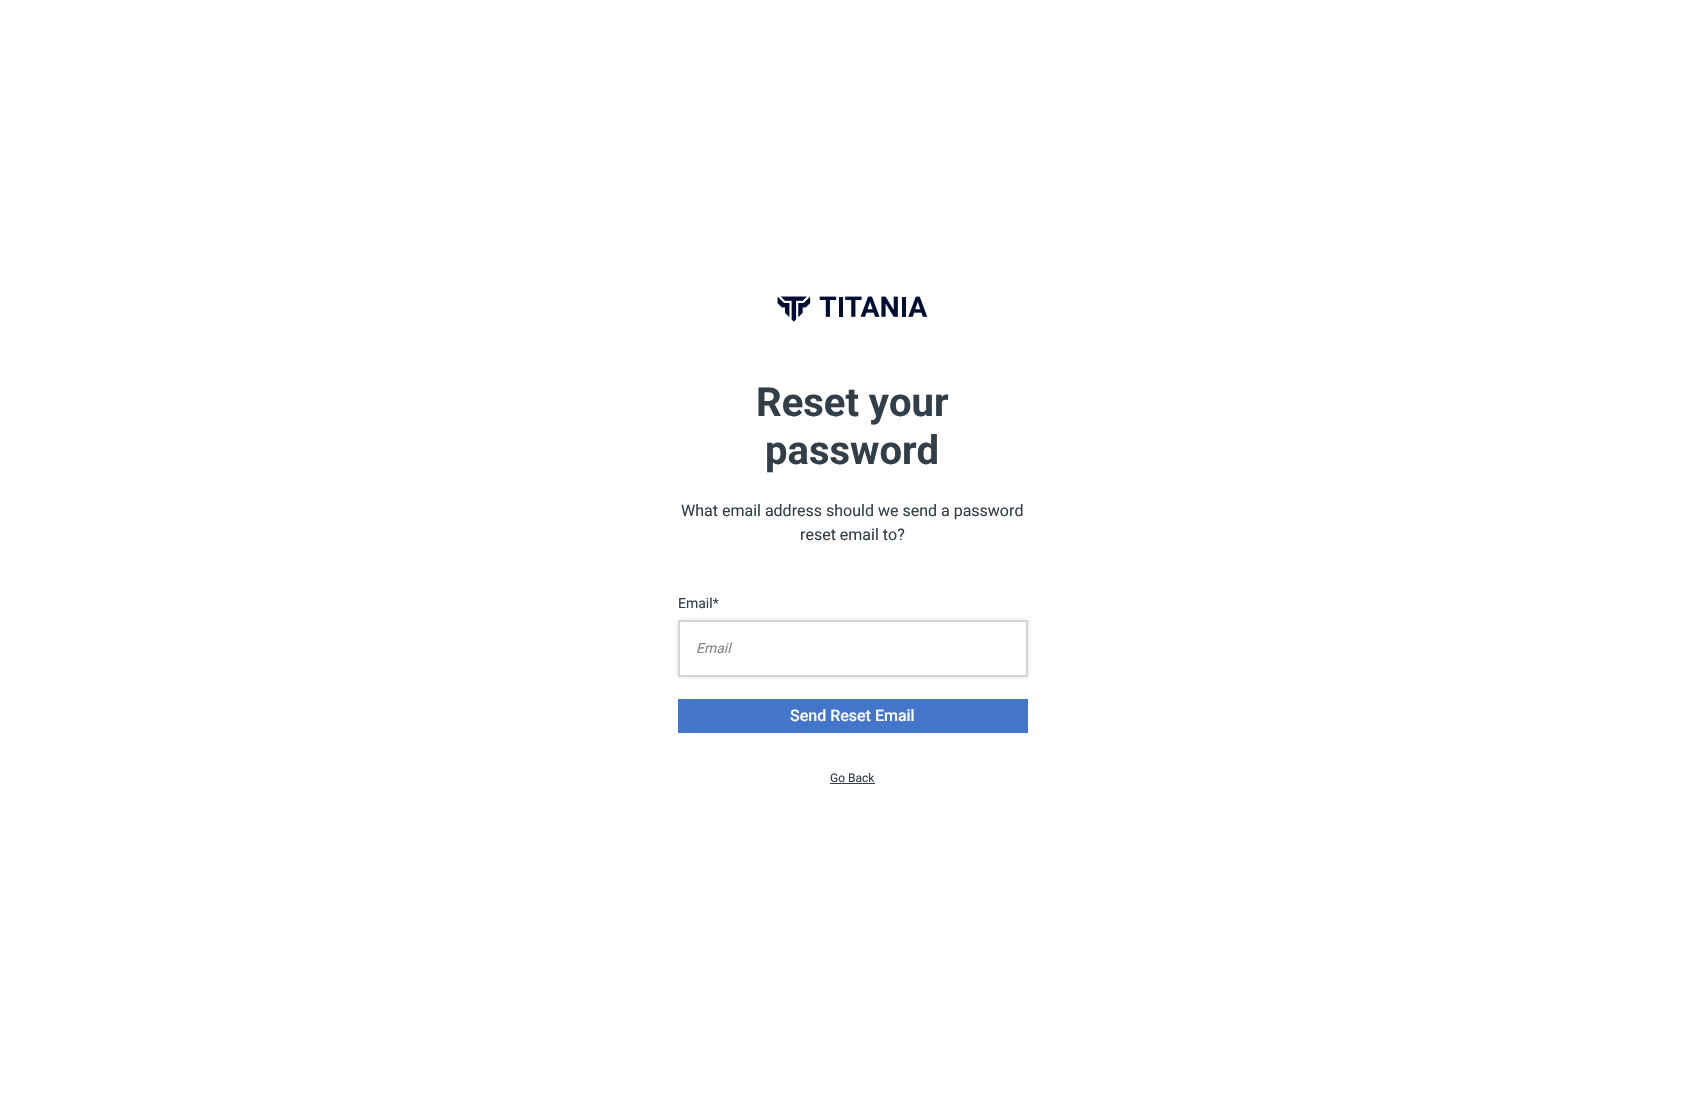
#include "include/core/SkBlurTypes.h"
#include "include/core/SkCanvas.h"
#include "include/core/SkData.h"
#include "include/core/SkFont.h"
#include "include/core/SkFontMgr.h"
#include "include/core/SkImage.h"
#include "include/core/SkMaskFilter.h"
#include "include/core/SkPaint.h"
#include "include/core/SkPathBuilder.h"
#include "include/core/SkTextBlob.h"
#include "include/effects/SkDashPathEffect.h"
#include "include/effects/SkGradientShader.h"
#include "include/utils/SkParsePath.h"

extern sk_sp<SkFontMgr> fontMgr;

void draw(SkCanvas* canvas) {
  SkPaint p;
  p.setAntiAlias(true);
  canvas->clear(SK_ColorWHITE);
  canvas->drawImageRect(SkImages::DeferredFromEncodedData(SkData::MakeFromFileName("images/1.png")), SkRect::MakeLTRB(777, 296, 928, 322), SkSamplingOptions());
  canvas->save();
  canvas->clipPath(SkPathBuilder(SkPathFillType::kEvenOdd).moveTo(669, 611).lineTo(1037, 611).lineTo(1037, 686).lineTo(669, 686).close().moveTo(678, 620).lineTo(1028, 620).lineTo(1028, 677).lineTo(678, 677).close().detach(), true);
  p.setColor(SkColorSetARGB(26, 0, 0, 0));
  p.setMaskFilter(SkMaskFilter::MakeBlur(kNormal_SkBlurStyle, 2.5f));
  canvas->drawRect(SkRect::MakeLTRB(678, 620, 1028, 677), p);
  p.setMaskFilter(nullptr);
  canvas->restore();
  p.setStyle(SkPaint::kStroke_Style);
  p.setStrokeWidth(2);
  p.setColor(SkColorSetRGB(209, 214, 220));
  canvas->drawRect(SkRect::MakeLTRB(679, 621, 1027, 676), p);
  p.setStyle(SkPaint::kFill_Style);
  p.setColor(SkColorSetRGB(67, 117, 203));
  canvas->drawRect(SkRect::MakeLTRB(678, 699, 1028, 733), p);
  p.setColor(SkColorSetRGB(50, 62, 72));
  canvas->drawRect(SkRect::MakeLTRB(830, 783, 875, 784), p);
  SkFont font1(fontMgr->matchFamilyStyle("Roboto", SkFontStyle::Bold()), 40);
  font1.setSubpixel(true);
  canvas->drawString("Reset your", 756, 416, font1, p);
  canvas->drawString("password", 765, 464, font1, p);
  SkFont font2(fontMgr->matchFamilyStyle("Roboto", SkFontStyle::Normal()), 16);
  font2.setSubpixel(true);
  canvas->drawString("What email address should we send a password", 681, 516, font2, p);
  canvas->drawString("reset email to?", 800, 540, font2, p);
  SkFont font3(fontMgr->matchFamilyStyle("Roboto", SkFontStyle::Normal()), 14);
  font3.setSubpixel(true);
  canvas->drawString("Email*", 678, 608, font3, p);
  SkFont font4(fontMgr->matchFamilyStyle("Roboto", SkFontStyle::Italic()), 14);
  font4.setSubpixel(true);
  p.setColor(SkColorSetRGB(128, 135, 141));
  canvas->drawString("Email", 696, 653, font4, p);
  SkFont font5(fontMgr->matchFamilyStyle("Roboto", SkFontStyle(500, SkFontStyle::kNormal_Width, SkFontStyle::kUpright_Slant)), 16);
  font5.setSubpixel(true);
  p.setColor(SK_ColorWHITE);
  canvas->drawString("Send Reset Email", 790, 721, font5, p);
  SkFont font6(fontMgr->matchFamilyStyle("Roboto", SkFontStyle::Normal()), 12);
  font6.setSubpixel(true);
  p.setColor(SkColorSetRGB(50, 62, 72));
  canvas->drawString("Go Back", 830, 782, font6, p);
}
